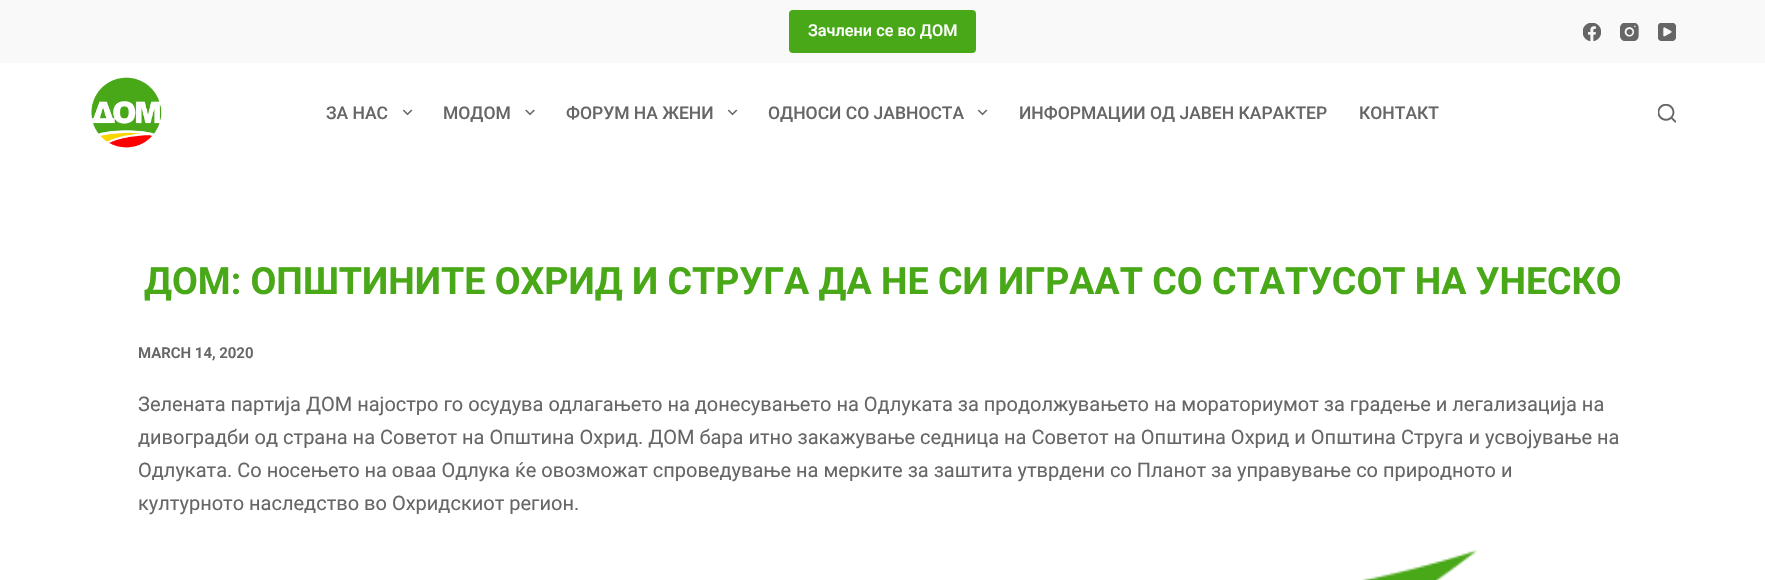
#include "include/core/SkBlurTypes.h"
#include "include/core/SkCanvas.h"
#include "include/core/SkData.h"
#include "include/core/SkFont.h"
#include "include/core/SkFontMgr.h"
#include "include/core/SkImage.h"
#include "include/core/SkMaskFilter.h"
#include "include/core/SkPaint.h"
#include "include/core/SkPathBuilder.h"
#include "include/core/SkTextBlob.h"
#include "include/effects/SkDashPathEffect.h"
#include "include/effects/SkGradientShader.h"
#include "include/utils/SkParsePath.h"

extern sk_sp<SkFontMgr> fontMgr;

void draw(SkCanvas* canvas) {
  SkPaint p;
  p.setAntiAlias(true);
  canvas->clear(SK_ColorWHITE);
  p.setColor(SkColorSetRGB(249, 249, 249));
  canvas->drawRect(SkRect::MakeLTRB(0, 0, 1765, 63), p);
  p.setColor(SkColorSetRGB(72, 168, 23));
  canvas->drawRoundRect(SkRect::MakeLTRB(789, 10, 976, 53), 4, 4, p);
  canvas->drawImageRect(SkImages::DeferredFromEncodedData(SkData::MakeFromFileName("images/1.png")), SkRect::MakeLTRB(1583, 23, 1601, 41), SkSamplingOptions());
  canvas->drawImageRect(SkImages::DeferredFromEncodedData(SkData::MakeFromFileName("images/2.png")), SkRect::MakeLTRB(1620, 23, 1639, 41), SkSamplingOptions());
  canvas->drawImageRect(SkImages::DeferredFromEncodedData(SkData::MakeFromFileName("images/3.png")), SkRect::MakeLTRB(1658, 23, 1676, 41), SkSamplingOptions());
  canvas->drawImageRect(SkImages::DeferredFromEncodedData(SkData::MakeFromFileName("images/4.png")), SkRect::MakeLTRB(91, 77, 162, 148), SkSamplingOptions());
  canvas->drawImageRect(SkImages::DeferredFromEncodedData(SkData::MakeFromFileName("images/5.png")), SkRect::MakeLTRB(403, 109, 413, 116), SkSamplingOptions());
  canvas->drawImageRect(SkImages::DeferredFromEncodedData(SkData::MakeFromFileName("images/6.png")), SkRect::MakeLTRB(525, 109, 535, 116), SkSamplingOptions());
  canvas->drawImageRect(SkImages::DeferredFromEncodedData(SkData::MakeFromFileName("images/5.png")), SkRect::MakeLTRB(728, 109, 738, 116), SkSamplingOptions());
  canvas->drawImageRect(SkImages::DeferredFromEncodedData(SkData::MakeFromFileName("images/5.png")), SkRect::MakeLTRB(978, 109, 988, 116), SkSamplingOptions());
  canvas->drawImageRect(SkImages::DeferredFromEncodedData(SkData::MakeFromFileName("images/7.png")), SkRect::MakeLTRB(1658, 104, 1676, 123), SkSamplingOptions());
  canvas->drawImageRect(SkImages::DeferredFromEncodedData(SkData::MakeFromFileName("images/8.png")), SkRect::MakeLTRB(1362, 550, 1478, 580), SkSamplingOptions());
  SkFont font1(fontMgr->matchFamilyStyle("Roboto", SkFontStyle(500, SkFontStyle::kNormal_Width, SkFontStyle::kUpright_Slant)), 16.25f);
  font1.setSubpixel(true);
  p.setColor(SK_ColorWHITE);
  canvas->drawString("Зачлени се во ДОМ", 808, 36, font1, p);
  SkFont font2(fontMgr->matchFamilyStyle("Roboto", SkFontStyle(500, SkFontStyle::kNormal_Width, SkFontStyle::kUpright_Slant)), 17.5f);
  font2.setSubpixel(true);
  p.setColor(SkColorSetRGB(102, 102, 102));
  canvas->drawString("ЗА НАС", 326, 119, font2, p);
  canvas->drawString("МОДОМ", 443, 119, font2, p);
  canvas->drawString("ФОРУМ НА ЖЕНИ", 566, 119, font2, p);
  canvas->drawString("ОДНОСИ СО ЈАВНОСТА", 768, 119, font2, p);
  canvas->drawString("ИНФОРМАЦИИ ОД ЈАВЕН КАРАКТЕР", 1019, 119, font2, p);
  canvas->drawString("КОНТАКТ", 1359, 119, font2, p);
  SkFont font3(fontMgr->matchFamilyStyle("Roboto", SkFontStyle::Bold()), 37.5f);
  font3.setSubpixel(true);
  p.setColor(SkColorSetRGB(72, 168, 23));
  canvas->drawString("ДОМ: ОПШТИНИТЕ ОХРИД И СТРУГА ДА НЕ СИ ИГРААТ СО СТАТУСОТ НА УНЕСКО", 144, 294, font3, p);
  SkFont font4(fontMgr->matchFamilyStyle("Roboto", SkFontStyle(600, SkFontStyle::kNormal_Width, SkFontStyle::kUpright_Slant)), 15);
  font4.setSubpixel(true);
  p.setColor(SkColorSetRGB(102, 102, 102));
  canvas->drawString("MARCH 14, 2020", 138, 358, font4, p);
  SkFont font5(fontMgr->matchFamilyStyle("Roboto", SkFontStyle::Normal()), 20);
  font5.setSubpixel(true);
  canvas->drawString("Зелената партија ДОМ најостро го осудува одлагањето на донесувањето на Одлуката за продолжувањето на мораториумот за градење и легализација на", 138, 411, font5, p);
  canvas->drawString("дивоградби од страна на Советот на Општина Охрид. ДОМ бара итно закажување седница на Советот на Општина Охрид и Општина Струга и усвојување на", 138, 444, font5, p);
  canvas->drawString("Одлуката. Со носењето на оваа Одлука ќе овозможат спроведување на мерките за заштита утврдени со Планот за управување со природното и", 138, 477, font5, p);
  canvas->drawString("културното наследство во Охридскиот регион.", 138, 510, font5, p);
}
